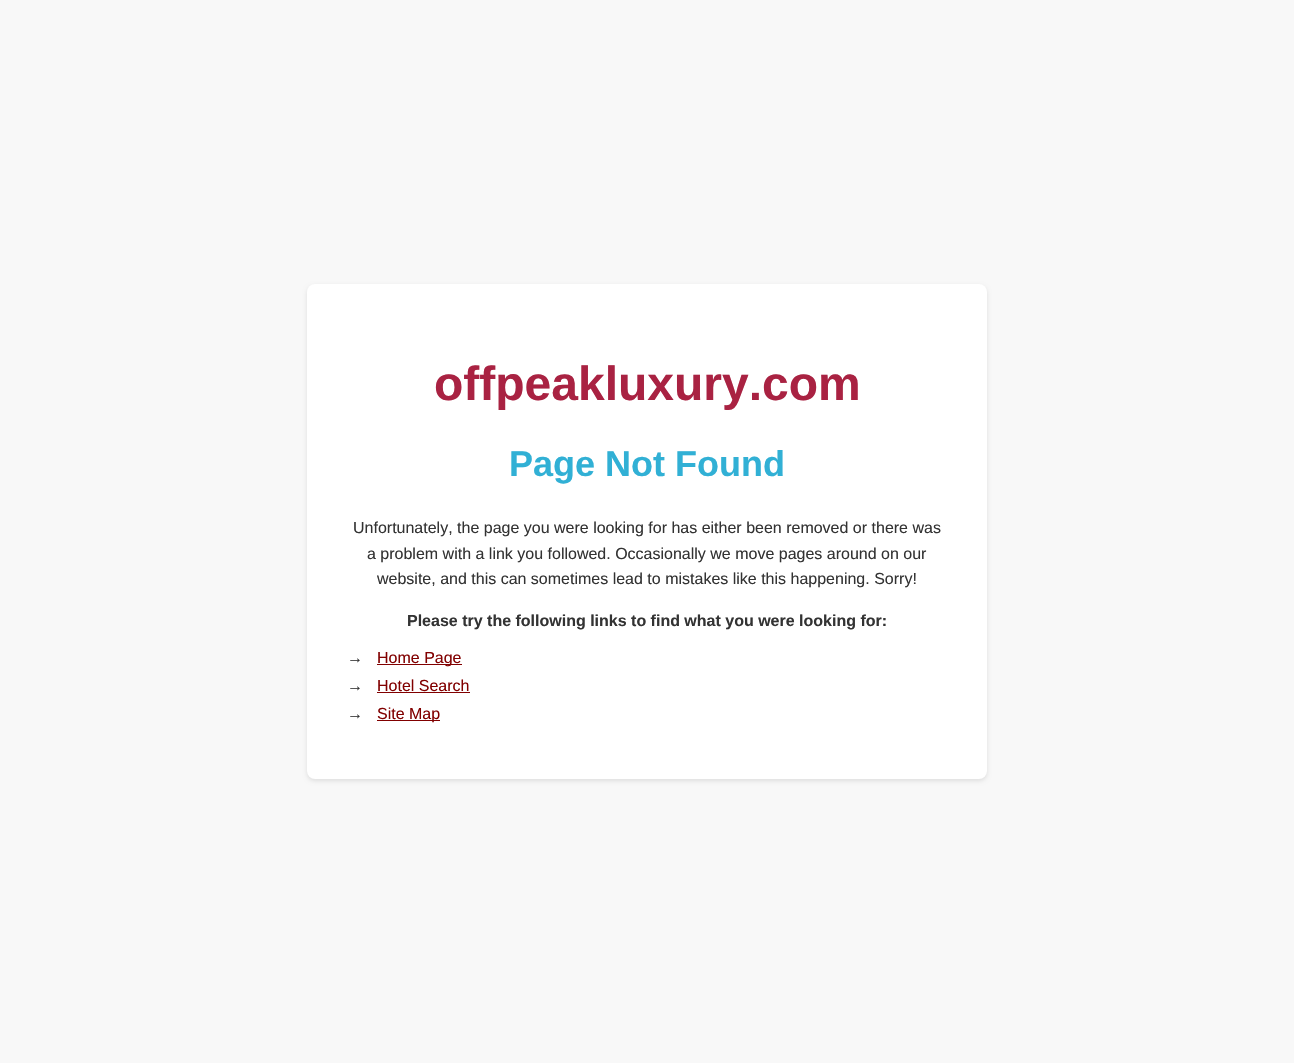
#include "include/core/SkBlurTypes.h"
#include "include/core/SkCanvas.h"
#include "include/core/SkData.h"
#include "include/core/SkFont.h"
#include "include/core/SkFontMgr.h"
#include "include/core/SkImage.h"
#include "include/core/SkMaskFilter.h"
#include "include/core/SkPaint.h"
#include "include/core/SkPathBuilder.h"
#include "include/core/SkTextBlob.h"
#include "include/effects/SkDashPathEffect.h"
#include "include/effects/SkGradientShader.h"
#include "include/utils/SkParsePath.h"

extern sk_sp<SkFontMgr> fontMgr;

void draw(SkCanvas* canvas) {
  SkPaint p;
  p.setAntiAlias(true);
  canvas->clear(SkColorSetRGB(248, 248, 248));
  p.setColor(SkColorSetARGB(26, 0, 0, 0));
  p.setMaskFilter(SkMaskFilter::MakeBlur(kNormal_SkBlurStyle, 2));
  canvas->drawRoundRect(SkRect::MakeLTRB(307, 286, 987, 781), 8, 8, p);
  p.setMaskFilter(nullptr);
  p.setColor(SK_ColorWHITE);
  canvas->drawRoundRect(SkRect::MakeLTRB(307, 284, 987, 779), 8, 8, p);
  p.setColor(SkColorSetRGB(129, 0, 0));
  canvas->drawRect(SkRect::MakeLTRB(377, 664, 462, 665), p);
  canvas->drawRect(SkRect::MakeLTRB(377, 692, 470, 693), p);
  canvas->drawRect(SkRect::MakeLTRB(377, 720, 440, 721), p);
  SkFont font1(fontMgr->matchFamilyStyle("Liberation Sans", SkFontStyle::Bold()), 48);
  font1.setSubpixel(true);
  p.setColor(SkColorSetRGB(169, 34, 66));
  canvas->drawString("offpeakluxury.com", 434, 400, font1, p);
  SkFont font2(fontMgr->matchFamilyStyle("Liberation Sans", SkFontStyle::Bold()), 36);
  font2.setSubpixel(true);
  p.setColor(SkColorSetRGB(49, 176, 213));
  canvas->drawString("Page Not Found", 509, 476, font2, p);
  SkFont font3(fontMgr->matchFamilyStyle("Liberation Sans", SkFontStyle::Normal()), 16);
  font3.setSubpixel(true);
  p.setColor(SkColorSetRGB(51, 51, 51));
  canvas->drawString("Unfortunately, the page you were looking for has either been removed or there was", 353, 533, font3, p);
  canvas->drawString("a problem with a link you followed. Occasionally we move pages around on our", 367, 559, font3, p);
  canvas->drawString("website, and this can sometimes lead to mistakes like this happening. Sorry!", 377, 584, font3, p);
  SkFont font4(fontMgr->matchFamilyStyle("Liberation Sans", SkFontStyle::Bold()), 16);
  font4.setSubpixel(true);
  canvas->drawString("Please try the following links to find what you were looking for:", 407, 626, font4, p);
  canvas->drawString("→", 347, 663, font3, p);
  p.setColor(SkColorSetRGB(129, 0, 0));
  canvas->drawString("Home Page", 377, 663, font3, p);
  p.setColor(SkColorSetRGB(51, 51, 51));
  canvas->drawString("→", 347, 691, font3, p);
  p.setColor(SkColorSetRGB(129, 0, 0));
  canvas->drawString("Hotel Search", 377, 691, font3, p);
  p.setColor(SkColorSetRGB(51, 51, 51));
  canvas->drawString("→", 347, 719, font3, p);
  p.setColor(SkColorSetRGB(129, 0, 0));
  canvas->drawString("Site Map", 377, 719, font3, p);
}
